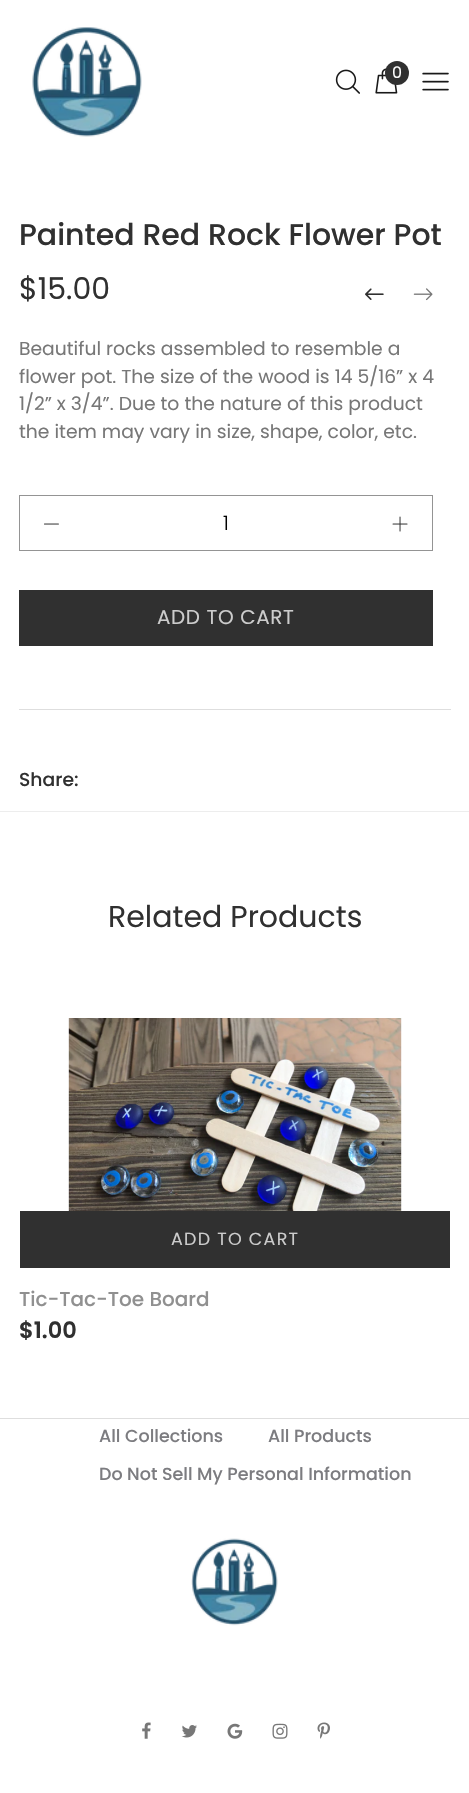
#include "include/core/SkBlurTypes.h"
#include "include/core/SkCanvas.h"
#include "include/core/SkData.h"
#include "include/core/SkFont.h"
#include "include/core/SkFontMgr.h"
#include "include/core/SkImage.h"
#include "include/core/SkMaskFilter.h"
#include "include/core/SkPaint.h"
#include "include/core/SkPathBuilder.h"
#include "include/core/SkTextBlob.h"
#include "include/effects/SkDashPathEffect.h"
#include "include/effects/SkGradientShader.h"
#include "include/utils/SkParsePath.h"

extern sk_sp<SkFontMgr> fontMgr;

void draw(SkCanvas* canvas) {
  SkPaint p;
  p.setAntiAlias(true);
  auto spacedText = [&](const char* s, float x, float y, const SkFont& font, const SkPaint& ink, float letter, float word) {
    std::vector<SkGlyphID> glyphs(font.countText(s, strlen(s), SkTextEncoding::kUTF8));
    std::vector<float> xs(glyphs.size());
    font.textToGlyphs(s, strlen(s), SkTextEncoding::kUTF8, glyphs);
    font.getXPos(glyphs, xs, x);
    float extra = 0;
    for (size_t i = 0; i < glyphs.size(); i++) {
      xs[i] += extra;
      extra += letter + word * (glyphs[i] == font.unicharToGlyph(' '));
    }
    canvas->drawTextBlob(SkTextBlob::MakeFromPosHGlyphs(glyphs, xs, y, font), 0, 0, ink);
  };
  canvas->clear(SK_ColorWHITE);
  canvas->drawImageRect(SkImages::DeferredFromEncodedData(SkData::MakeFromFileName("images/1.png")), SkRect::MakeLTRB(32, 27, 142, 137), SkSamplingOptions());
  canvas->drawImageRect(SkImages::DeferredFromEncodedData(SkData::MakeFromFileName("images/2.png")), SkRect::MakeLTRB(335, 69, 360, 94), SkSamplingOptions());
  canvas->drawImageRect(SkImages::DeferredFromEncodedData(SkData::MakeFromFileName("images/3.png")), SkRect::MakeLTRB(375, 68, 398, 94), SkSamplingOptions());
  p.setColor(SkColorSetRGB(48, 48, 48));
  canvas->drawCircle(397, 73, 12, p);
  canvas->drawImageRect(SkImages::DeferredFromEncodedData(SkData::MakeFromFileName("images/4.png")), SkRect::MakeLTRB(422, 72, 449, 91), SkSamplingOptions());
  canvas->drawImageRect(SkImages::DeferredFromEncodedData(SkData::MakeFromFileName("images/5.png")), SkRect::MakeLTRB(365, 288, 384, 300), SkSamplingOptions());
  canvas->drawImageRect(SkImages::DeferredFromEncodedData(SkData::MakeFromFileName("images/6.png")), SkRect::MakeLTRB(413, 288, 433, 301), SkSamplingOptions());
  p.setStyle(SkPaint::kStroke_Style);
  p.setStrokeWidth(1);
  p.setColor(SkColorSetRGB(148, 148, 148));
  canvas->drawRect(SkRect::MakeLTRB(19.5f, 495.5f, 432.5f, 550.5f), p);
  canvas->drawImageRect(SkImages::DeferredFromEncodedData(SkData::MakeFromFileName("images/7.png")), SkRect::MakeLTRB(44, 523, 59, 525), SkSamplingOptions());
  canvas->drawImageRect(SkImages::DeferredFromEncodedData(SkData::MakeFromFileName("images/8.png")), SkRect::MakeLTRB(392, 516, 408, 532), SkSamplingOptions());
  p.setStyle(SkPaint::kFill_Style);
  p.setColor(SkColorSetRGB(48, 48, 48));
  canvas->drawRect(SkRect::MakeLTRB(19, 590, 433, 646), p);
  p.setColor(SkColorSetRGB(222, 222, 222));
  canvas->drawRect(SkRect::MakeLTRB(19, 709, 451, 710), p);
  p.setColor(SkColorSetRGB(237, 237, 237));
  canvas->drawRect(SkRect::MakeLTRB(0, 811, 469, 812), p);
  canvas->drawImageRect(SkImages::DeferredFromEncodedData(SkData::MakeFromFileName("images/9.png")), SkRect::MakeLTRB(68, 1018, 402, 1211), SkSamplingOptions());
  p.setColor(SkColorSetRGB(48, 48, 48));
  canvas->drawRect(SkRect::MakeLTRB(20, 1211, 450, 1268), p);
  p.setColor(SkColorSetRGB(222, 222, 222));
  canvas->drawRect(SkRect::MakeLTRB(0, 1418, 469, 1419), p);
  canvas->drawImageRect(SkImages::DeferredFromEncodedData(SkData::MakeFromFileName("images/10.png")), SkRect::MakeLTRB(191, 1538, 278, 1626), SkSamplingOptions());
  canvas->drawImageRect(SkImages::DeferredFromEncodedData(SkData::MakeFromFileName("images/11.png")), SkRect::MakeLTRB(142, 1722, 151, 1739), SkSamplingOptions());
  canvas->drawImageRect(SkImages::DeferredFromEncodedData(SkData::MakeFromFileName("images/12.png")), SkRect::MakeLTRB(181, 1725, 197, 1738), SkSamplingOptions());
  canvas->drawImageRect(SkImages::DeferredFromEncodedData(SkData::MakeFromFileName("images/13.png")), SkRect::MakeLTRB(227, 1723, 243, 1739), SkSamplingOptions());
  canvas->drawImageRect(SkImages::DeferredFromEncodedData(SkData::MakeFromFileName("images/14.png")), SkRect::MakeLTRB(272, 1723, 288, 1739), SkSamplingOptions());
  canvas->drawImageRect(SkImages::DeferredFromEncodedData(SkData::MakeFromFileName("images/15.png")), SkRect::MakeLTRB(317, 1722, 330, 1739), SkSamplingOptions());
  SkFont font1(fontMgr->matchFamilyStyle("Poppins", SkFontStyle::Normal()), 16);
  font1.setSubpixel(true);
  p.setColor(SK_ColorWHITE);
  canvas->drawString("0", 392, 78, font1, p);
  SkFont font2(fontMgr->matchFamilyStyle("Poppins", SkFontStyle(500, SkFontStyle::kNormal_Width, SkFontStyle::kUpright_Slant)), 30);
  font2.setSubpixel(true);
  p.setColor(SkColorSetRGB(48, 48, 48));
  canvas->drawString("Painted Red Rock Flower Pot", 19, 245, font2, p);
  SkFont font3(fontMgr->matchFamilyStyle("Poppins", SkFontStyle::Normal()), 30);
  font3.setSubpixel(true);
  canvas->drawString("$15.00", 19, 299, font3, p);
  SkFont font4(fontMgr->matchFamilyStyle("Poppins", SkFontStyle::Normal()), 18.75f);
  font4.setSubpixel(true);
  p.setColor(SkColorSetRGB(119, 119, 119));
  canvas->drawString("Beautiful rocks assembled to resemble a", 19, 355, font4, p);
  canvas->drawString("flower pot. The size of the wood is 14 5/16” x 4", 19, 383, font4, p);
  canvas->drawString("1/2” x 3/4”. Due to the nature of this product", 19, 410, font4, p);
  canvas->drawString("the item may vary in size, shape, color, etc.", 19, 438, font4, p);
  SkFont font5(fontMgr->matchFamilyStyle("Poppins", SkFontStyle(300, SkFontStyle::kNormal_Width, SkFontStyle::kUpright_Slant)), 20);
  font5.setSubpixel(true);
  p.setColor(SK_ColorBLACK);
  canvas->drawString("1", 223, 530, font5, p);
  SkFont font6(fontMgr->matchFamilyStyle("Poppins", SkFontStyle::Normal()), 20);
  font6.setSubpixel(true);
  p.setColor(SkColorSetRGB(204, 204, 204));
  spacedText("ADD TO CART", 157, 624, font6, p, 0.6f, 0);
  SkFont font7(fontMgr->matchFamilyStyle("Poppins", SkFontStyle(500, SkFontStyle::kNormal_Width, SkFontStyle::kUpright_Slant)), 18.75f);
  font7.setSubpixel(true);
  p.setColor(SkColorSetRGB(48, 48, 48));
  canvas->drawString("Share:", 19, 786, font7, p);
  canvas->drawString("Related Products", 108, 927, font3, p);
  SkFont font8(fontMgr->matchFamilyStyle("Poppins", SkFontStyle::Normal()), 17.5f);
  font8.setSubpixel(true);
  p.setColor(SkColorSetRGB(204, 204, 204));
  spacedText("ADD TO CART", 171, 1245, font8, p, 1.25f, 0);
  SkFont font9(fontMgr->matchFamilyStyle("Poppins", SkFontStyle(500, SkFontStyle::kNormal_Width, SkFontStyle::kUpright_Slant)), 20);
  font9.setSubpixel(true);
  p.setColor(SkColorSetRGB(144, 144, 144));
  canvas->drawString("Tic-Tac-Toe Board", 19, 1306, font9, p);
  SkFont font10(fontMgr->matchFamilyStyle("Poppins", SkFontStyle(600, SkFontStyle::kNormal_Width, SkFontStyle::kUpright_Slant)), 22.5f);
  font10.setSubpixel(true);
  p.setColor(SkColorSetRGB(48, 48, 48));
  canvas->drawString("$1.00", 19, 1338, font10, p);
  SkFont font11(fontMgr->matchFamilyStyle("Poppins", SkFontStyle(500, SkFontStyle::kNormal_Width, SkFontStyle::kUpright_Slant)), 17.5f);
  font11.setSubpixel(true);
  p.setColor(SkColorSetRGB(124, 124, 128));
  canvas->drawString("All Collections", 99, 1442, font11, p);
  canvas->drawString("All Products", 268, 1442, font11, p);
  canvas->drawString("Do Not Sell My Personal Information", 99, 1480, font11, p);
}
